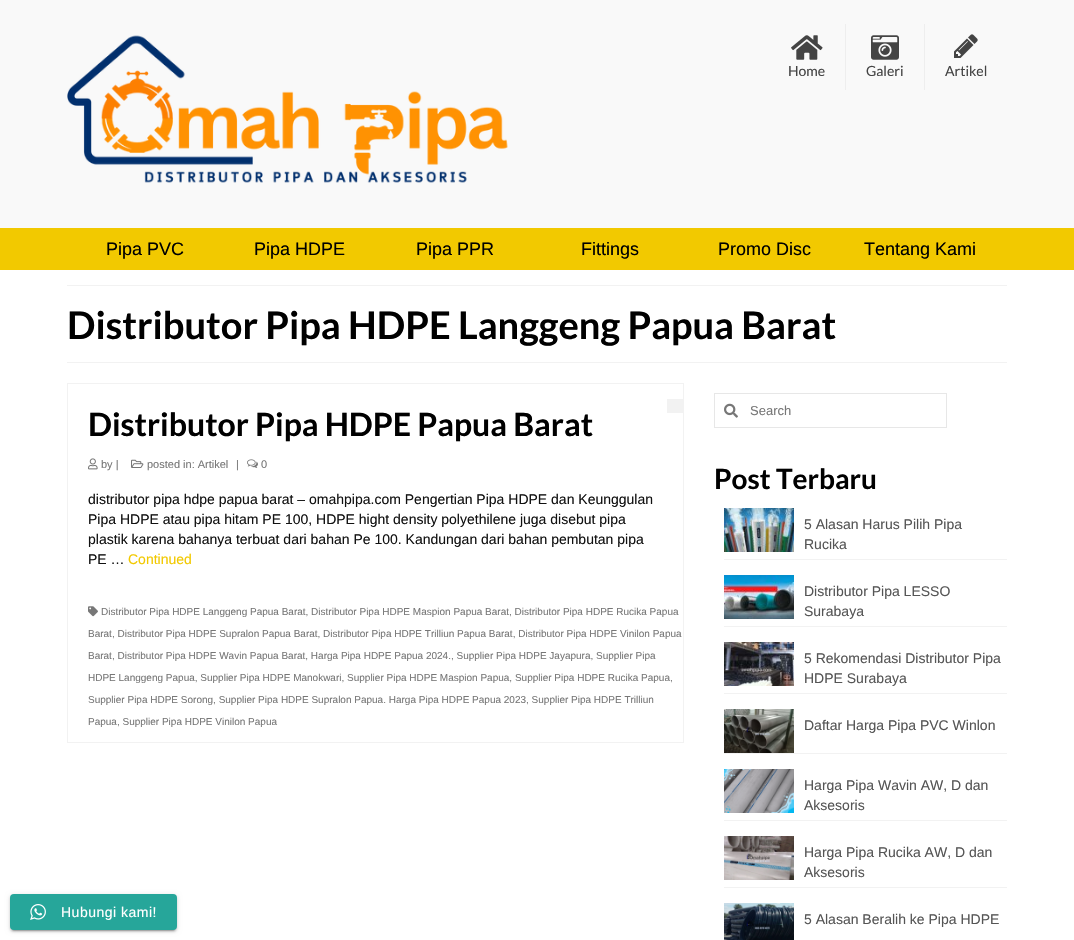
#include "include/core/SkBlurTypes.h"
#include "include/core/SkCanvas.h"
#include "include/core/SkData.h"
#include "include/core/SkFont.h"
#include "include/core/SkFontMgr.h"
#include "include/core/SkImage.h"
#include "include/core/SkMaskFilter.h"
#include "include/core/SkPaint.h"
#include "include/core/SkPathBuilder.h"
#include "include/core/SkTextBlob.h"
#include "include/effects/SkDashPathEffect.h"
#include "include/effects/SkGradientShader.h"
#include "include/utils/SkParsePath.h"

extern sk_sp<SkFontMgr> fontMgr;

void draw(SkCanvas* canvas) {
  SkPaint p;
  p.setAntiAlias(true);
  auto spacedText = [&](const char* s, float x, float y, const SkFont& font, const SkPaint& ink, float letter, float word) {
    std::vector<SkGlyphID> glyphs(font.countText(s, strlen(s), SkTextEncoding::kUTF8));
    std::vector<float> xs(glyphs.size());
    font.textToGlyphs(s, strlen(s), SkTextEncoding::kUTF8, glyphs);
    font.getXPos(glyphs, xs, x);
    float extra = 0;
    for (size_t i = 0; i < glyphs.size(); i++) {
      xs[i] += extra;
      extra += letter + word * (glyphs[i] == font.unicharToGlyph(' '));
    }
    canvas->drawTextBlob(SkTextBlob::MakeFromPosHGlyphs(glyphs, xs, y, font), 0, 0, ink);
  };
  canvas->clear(SkColorSetRGB(249, 249, 249));
  canvas->drawImageRect(SkImages::DeferredFromEncodedData(SkData::MakeFromFileName("images/1.png")), SkRect::MakeLTRB(67, 35, 508, 183), SkSamplingOptions());
  p.setColor(SkColorSetRGB(238, 238, 238));
  canvas->drawRect(SkRect::MakeLTRB(845, 24, 846, 90), p);
  canvas->drawImageRect(SkImages::DeferredFromEncodedData(SkData::MakeFromFileName("images/2.png")), SkRect::MakeLTRB(791, 35, 823, 60), SkSamplingOptions());
  canvas->drawRect(SkRect::MakeLTRB(924, 24, 925, 90), p);
  canvas->drawImageRect(SkImages::DeferredFromEncodedData(SkData::MakeFromFileName("images/3.png")), SkRect::MakeLTRB(871, 35, 899, 60), SkSamplingOptions());
  canvas->drawImageRect(SkImages::DeferredFromEncodedData(SkData::MakeFromFileName("images/4.png")), SkRect::MakeLTRB(954, 34, 978, 58), SkSamplingOptions());
  p.setColor(SkColorSetRGB(242, 201, 0));
  canvas->drawRect(SkRect::MakeLTRB(0, 228, 1074, 270), p);
  p.setColor(SK_ColorWHITE);
  canvas->drawRect(SkRect::MakeLTRB(0, 270, 1074, 940), p);
  p.setColor(SkColorSetRGB(242, 242, 242));
  canvas->drawRect(SkRect::MakeLTRB(67, 285, 1007, 286), p);
  canvas->drawRect(SkRect::MakeLTRB(67, 362, 1007, 363), p);
  p.setStyle(SkPaint::kStroke_Style);
  p.setStrokeWidth(1);
  canvas->drawRect(SkRect::MakeLTRB(67.5f, 383.5f, 683.5f, 742.5f), p);
  p.setStyle(SkPaint::kFill_Style);
  canvas->drawRect(SkRect::MakeLTRB(667, 399, 683, 413), p);
  canvas->drawImageRect(SkImages::DeferredFromEncodedData(SkData::MakeFromFileName("images/5.png")), SkRect::MakeLTRB(88, 458, 98, 470), SkSamplingOptions());
  canvas->drawImageRect(SkImages::DeferredFromEncodedData(SkData::MakeFromFileName("images/6.png")), SkRect::MakeLTRB(131, 459, 144, 468), SkSamplingOptions());
  canvas->drawImageRect(SkImages::DeferredFromEncodedData(SkData::MakeFromFileName("images/7.png")), SkRect::MakeLTRB(247, 459, 258, 468), SkSamplingOptions());
  canvas->drawImageRect(SkImages::DeferredFromEncodedData(SkData::MakeFromFileName("images/8.png")), SkRect::MakeLTRB(88, 606, 98, 617), SkSamplingOptions());
  p.setStyle(SkPaint::kStroke_Style);
  p.setColor(SkColorSetRGB(231, 231, 231));
  canvas->drawRect(SkRect::MakeLTRB(714.5f, 393.5f, 946.5f, 427.5f), p);
  canvas->drawImageRect(SkImages::DeferredFromEncodedData(SkData::MakeFromFileName("images/9.png")), SkRect::MakeLTRB(724, 403, 738, 418), SkSamplingOptions());
  p.setStyle(SkPaint::kFill_Style);
  p.setColor(SkColorSetRGB(242, 242, 242));
  canvas->drawRect(SkRect::MakeLTRB(724, 559, 1007, 560), p);
  canvas->drawImageRect(SkImages::DeferredFromEncodedData(SkData::MakeFromFileName("images/10.png")), SkRect::MakeLTRB(724, 508, 794, 552), SkSamplingOptions());
  canvas->drawRect(SkRect::MakeLTRB(724, 626, 1007, 627), p);
  canvas->drawImageRect(SkImages::DeferredFromEncodedData(SkData::MakeFromFileName("images/11.png")), SkRect::MakeLTRB(724, 575, 794, 619), SkSamplingOptions());
  canvas->drawRect(SkRect::MakeLTRB(724, 693, 1007, 694), p);
  canvas->drawImageRect(SkImages::DeferredFromEncodedData(SkData::MakeFromFileName("images/12.png")), SkRect::MakeLTRB(724, 642, 794, 686), SkSamplingOptions());
  canvas->drawRect(SkRect::MakeLTRB(724, 753, 1007, 754), p);
  canvas->drawImageRect(SkImages::DeferredFromEncodedData(SkData::MakeFromFileName("images/13.png")), SkRect::MakeLTRB(724, 709, 794, 753), SkSamplingOptions());
  canvas->drawRect(SkRect::MakeLTRB(724, 820, 1007, 821), p);
  canvas->drawImageRect(SkImages::DeferredFromEncodedData(SkData::MakeFromFileName("images/14.png")), SkRect::MakeLTRB(724, 769, 794, 813), SkSamplingOptions());
  canvas->drawRect(SkRect::MakeLTRB(724, 887, 1007, 888), p);
  canvas->drawImageRect(SkImages::DeferredFromEncodedData(SkData::MakeFromFileName("images/15.png")), SkRect::MakeLTRB(724, 836, 794, 880), SkSamplingOptions());
  canvas->drawImageRect(SkImages::DeferredFromEncodedData(SkData::MakeFromFileName("images/16.png")), SkRect::MakeLTRB(724, 903, 794, 940), SkSamplingOptions());
  p.setColor(SkColorSetARGB(51, 0, 0, 0));
  p.setMaskFilter(SkMaskFilter::MakeBlur(kNormal_SkBlurStyle, 0.5f));
  canvas->drawRoundRect(SkRect::MakeLTRB(12, 899, 175, 931), 2, 2, p);
  p.setMaskFilter(nullptr);
  p.setColor(SkColorSetARGB(31, 0, 0, 0));
  p.setMaskFilter(SkMaskFilter::MakeBlur(kNormal_SkBlurStyle, 2.5f));
  canvas->drawRoundRect(SkRect::MakeLTRB(10, 895, 177, 931), 4, 4, p);
  p.setMaskFilter(nullptr);
  p.setColor(SkColorSetARGB(36, 0, 0, 0));
  p.setMaskFilter(SkMaskFilter::MakeBlur(kNormal_SkBlurStyle, 1));
  canvas->drawRoundRect(SkRect::MakeLTRB(10, 896, 177, 932), 4, 4, p);
  p.setMaskFilter(nullptr);
  p.setColor(SkColorSetRGB(38, 166, 154));
  canvas->drawRoundRect(SkRect::MakeLTRB(10, 894, 177, 930), 4, 4, p);
  canvas->drawImageRect(SkImages::DeferredFromEncodedData(SkData::MakeFromFileName("images/17.png")), SkRect::MakeLTRB(30, 904, 46, 920), SkSamplingOptions());
  SkFont font1(fontMgr->matchFamilyStyle("Lato", SkFontStyle::Normal()), 14);
  font1.setSubpixel(true);
  p.setColor(SkColorSetRGB(68, 68, 68));
  canvas->drawString("Home", 788, 76, font1, p);
  canvas->drawString("Galeri", 866, 76, font1, p);
  canvas->drawString("Artikel", 945, 76, font1, p);
  SkFont font2(fontMgr->matchFamilyStyle("Liberation Sans", SkFontStyle::Normal()), 18);
  font2.setSubpixel(true);
  p.setColor(SK_ColorBLACK);
  canvas->drawString("Pipa PVC", 106, 255, font2, p);
  canvas->drawString("Pipa HDPE", 254, 255, font2, p);
  canvas->drawString("Pipa PPR", 416, 255, font2, p);
  canvas->drawString("Fittings", 581, 255, font2, p);
  canvas->drawString("Promo Disc", 718, 255, font2, p);
  canvas->drawString("Tentang Kami", 864, 255, font2, p);
  SkFont font3(fontMgr->matchFamilyStyle("Lato", SkFontStyle::Bold()), 38);
  font3.setSubpixel(true);
  canvas->drawString("Distributor Pipa HDPE Langgeng Papua Barat", 67, 339, font3, p);
  SkFont font4(fontMgr->matchFamilyStyle("Lato", SkFontStyle::Bold()), 32);
  font4.setSubpixel(true);
  canvas->drawString("Distributor Pipa HDPE Papua Barat", 88, 436, font4, p);
  SkFont font5(fontMgr->matchFamilyStyle("Liberation Sans", SkFontStyle::Normal()), 11);
  font5.setSubpixel(true);
  p.setColor(SkColorSetRGB(119, 119, 119));
  canvas->drawString("by |", 101, 468, font5, p);
  canvas->drawString("posted in: Artikel", 147, 468, font5, p);
  canvas->drawString("|", 236, 468, font5, p);
  canvas->drawString("0", 261, 468, font5, p);
  SkFont font6(fontMgr->matchFamilyStyle("Liberation Sans", SkFontStyle::Normal()), 14);
  font6.setSubpixel(true);
  p.setColor(SkColorSetRGB(17, 17, 17));
  canvas->drawString("distributor pipa hdpe papua barat – omahpipa.com Pengertian Pipa HDPE dan Keunggulan", 88, 504, font6, p);
  canvas->drawString("Pipa HDPE atau pipa hitam PE 100, HDPE hight density polyethilene juga disebut pipa", 88, 524, font6, p);
  canvas->drawString("plastik karena bahanya terbuat dari bahan Pe 100. Kandungan dari bahan pembutan pipa", 88, 544, font6, p);
  canvas->drawString("PE …", 88, 564, font6, p);
  p.setColor(SkColorSetRGB(242, 201, 0));
  canvas->drawString("Continued", 128, 564, font6, p);
  SkFont font7(fontMgr->matchFamilyStyle("Liberation Sans", SkFontStyle::Normal()), 10);
  font7.setSubpixel(true);
  p.setColor(SkColorSetRGB(119, 119, 119));
  canvas->drawString("Distributor Pipa HDPE Langgeng Papua Barat, Distributor Pipa HDPE Maspion Papua Barat, Distributor Pipa HDPE Rucika Papua", 101, 615, font7, p);
  canvas->drawString("Barat, Distributor Pipa HDPE Supralon Papua Barat, Distributor Pipa HDPE Trilliun Papua Barat, Distributor Pipa HDPE Vinilon Papua", 88, 637, font7, p);
  canvas->drawString("Barat, Distributor Pipa HDPE Wavin Papua Barat, Harga Pipa HDPE Papua 2024., Supplier Pipa HDPE Jayapura, Supplier Pipa", 88, 659, font7, p);
  canvas->drawString("HDPE Langgeng Papua, Supplier Pipa HDPE Manokwari, Supplier Pipa HDPE Maspion Papua, Supplier Pipa HDPE Rucika Papua,", 88, 681, font7, p);
  canvas->drawString("Supplier Pipa HDPE Sorong, Supplier Pipa HDPE Supralon Papua. Harga Pipa HDPE Papua 2023, Supplier Pipa HDPE Trilliun", 88, 703, font7, p);
  canvas->drawString("Papua, Supplier Pipa HDPE Vinilon Papua", 88, 725, font7, p);
  SkFont font8(fontMgr->matchFamilyStyle("Liberation Sans", SkFontStyle::Normal()), 13);
  font8.setSubpixel(true);
  canvas->drawString("Search", 750, 415, font8, p);
  SkFont font9(fontMgr->matchFamilyStyle("Lato", SkFontStyle::Bold()), 28);
  font9.setSubpixel(true);
  p.setColor(SK_ColorBLACK);
  canvas->drawString("Post Terbaru", 714, 489, font9, p);
  p.setColor(SkColorSetRGB(85, 85, 85));
  canvas->drawString("5 Alasan Harus Pilih Pipa", 804, 529, font6, p);
  canvas->drawString("Rucika", 804, 549, font6, p);
  canvas->drawString("Distributor Pipa LESSO", 804, 596, font6, p);
  canvas->drawString("Surabaya", 804, 616, font6, p);
  canvas->drawString("5 Rekomendasi Distributor Pipa", 804, 663, font6, p);
  canvas->drawString("HDPE Surabaya", 804, 683, font6, p);
  canvas->drawString("Daftar Harga Pipa PVC Winlon", 804, 730, font6, p);
  canvas->drawString("Harga Pipa Wavin AW, D dan", 804, 790, font6, p);
  canvas->drawString("Aksesoris", 804, 810, font6, p);
  canvas->drawString("Harga Pipa Rucika AW, D dan", 804, 857, font6, p);
  canvas->drawString("Aksesoris", 804, 877, font6, p);
  canvas->drawString("5 Alasan Beralih ke Pipa HDPE", 804, 924, font6, p);
  p.setColor(SK_ColorWHITE);
  spacedText("Hubungi kami!", 61, 917, font6, p, 0.5f, 0);
}
